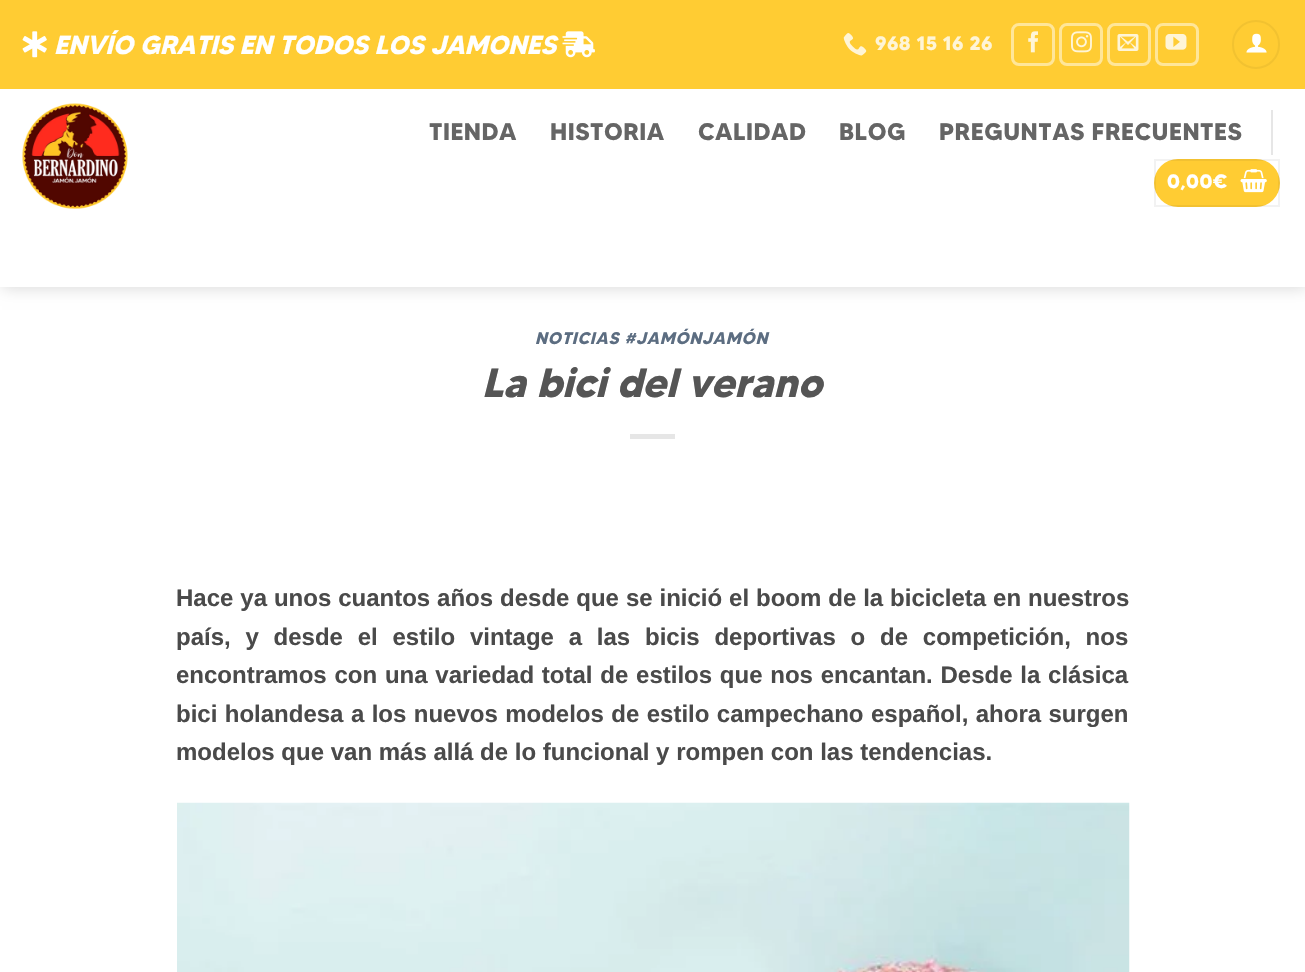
#include "include/core/SkBlurTypes.h"
#include "include/core/SkCanvas.h"
#include "include/core/SkData.h"
#include "include/core/SkFont.h"
#include "include/core/SkFontMgr.h"
#include "include/core/SkImage.h"
#include "include/core/SkMaskFilter.h"
#include "include/core/SkPaint.h"
#include "include/core/SkPathBuilder.h"
#include "include/core/SkTextBlob.h"
#include "include/effects/SkDashPathEffect.h"
#include "include/effects/SkGradientShader.h"
#include "include/utils/SkParsePath.h"

extern sk_sp<SkFontMgr> fontMgr;

void draw(SkCanvas* canvas) {
  SkPaint p;
  p.setAntiAlias(true);
  auto spacedText = [&](const char* s, float x, float y, const SkFont& font, const SkPaint& ink, float letter, float word) {
    std::vector<SkGlyphID> glyphs(font.countText(s, strlen(s), SkTextEncoding::kUTF8));
    std::vector<float> xs(glyphs.size());
    font.textToGlyphs(s, strlen(s), SkTextEncoding::kUTF8, glyphs);
    font.getXPos(glyphs, xs, x);
    float extra = 0;
    for (size_t i = 0; i < glyphs.size(); i++) {
      xs[i] += extra;
      extra += letter + word * (glyphs[i] == font.unicharToGlyph(' '));
    }
    canvas->drawTextBlob(SkTextBlob::MakeFromPosHGlyphs(glyphs, xs, y, font), 0, 0, ink);
  };
  canvas->clear(SK_ColorWHITE);
  p.setColor(SkColorSetARGB(38, 0, 0, 0));
  p.setMaskFilter(SkMaskFilter::MakeBlur(kNormal_SkBlurStyle, 7.5f));
  canvas->drawRect(SkRect::MakeLTRB(2, 2, 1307, 288), p);
  p.setMaskFilter(nullptr);
  p.setColor(SkColorSetRGB(255, 204, 51));
  canvas->drawRect(SkRect::MakeLTRB(0, 0, 1305, 89), p);
  canvas->drawImageRect(SkImages::DeferredFromEncodedData(SkData::MakeFromFileName("images/1.png")), SkRect::MakeLTRB(22, 31, 47, 58), SkSamplingOptions());
  canvas->drawImageRect(SkImages::DeferredFromEncodedData(SkData::MakeFromFileName("images/2.png")), SkRect::MakeLTRB(562, 31, 595, 58), SkSamplingOptions());
  canvas->drawImageRect(SkImages::DeferredFromEncodedData(SkData::MakeFromFileName("images/3.png")), SkRect::MakeLTRB(843, 33, 867, 56), SkSamplingOptions());
  p.setStyle(SkPaint::kStroke_Style);
  p.setStrokeWidth(3);
  p.setColor(SkColorSetRGB(255, 230, 153));
  canvas->drawRoundRect(SkRect::MakeLTRB(1012.5f, 24.5f, 1053.5f, 64.5f), 6.5f, 6.5f, p);
  canvas->drawImageRect(SkImages::DeferredFromEncodedData(SkData::MakeFromFileName("images/4.png")), SkRect::MakeLTRB(1028, 31, 1038, 53), SkSamplingOptions());
  canvas->drawRoundRect(SkRect::MakeLTRB(1060.5f, 24.5f, 1101.5f, 64.5f), 6.5f, 6.5f, p);
  canvas->drawImageRect(SkImages::DeferredFromEncodedData(SkData::MakeFromFileName("images/5.png")), SkRect::MakeLTRB(1071, 31, 1092, 53), SkSamplingOptions());
  canvas->drawRoundRect(SkRect::MakeLTRB(1108.5f, 24.5f, 1149.5f, 64.5f), 6.5f, 6.5f, p);
  canvas->drawImageRect(SkImages::DeferredFromEncodedData(SkData::MakeFromFileName("images/6.png")), SkRect::MakeLTRB(1117, 34, 1139, 51), SkSamplingOptions());
  canvas->drawRoundRect(SkRect::MakeLTRB(1156.5f, 24.5f, 1197.5f, 64.5f), 6.5f, 6.5f, p);
  canvas->drawImageRect(SkImages::DeferredFromEncodedData(SkData::MakeFromFileName("images/7.png")), SkRect::MakeLTRB(1165, 34, 1187, 50), SkSamplingOptions());
  p.setStrokeWidth(2);
  p.setColor(SkColorSetRGB(242, 194, 48));
  canvas->drawRoundRect(SkRect::MakeLTRB(1233, 21, 1279, 68), 23, 23, p);
  canvas->drawImageRect(SkImages::DeferredFromEncodedData(SkData::MakeFromFileName("images/8.png")), SkRect::MakeLTRB(1246, 33, 1267, 53), SkSamplingOptions());
  p.setStyle(SkPaint::kFill_Style);
  p.setColor(SK_ColorWHITE);
  canvas->drawRect(SkRect::MakeLTRB(0, 89, 1305, 287), p);
  canvas->drawImageRect(SkImages::DeferredFromEncodedData(SkData::MakeFromFileName("images/9.png")), SkRect::MakeLTRB(22, 103, 128, 209), SkSamplingOptions());
  p.setColor(SkColorSetRGB(230, 230, 230));
  canvas->drawRect(SkRect::MakeLTRB(1271, 110, 1273, 155), p);
  p.setColor(SkColorSetRGB(255, 204, 51));
  canvas->drawRoundRect(SkRect::MakeLTRB(1154, 159, 1280, 207), 24, 24, p);
  p.setStyle(SkPaint::kStroke_Style);
  p.setColor(SkColorSetARGB(13, 0, 0, 0));
  canvas->drawRect(SkRect::MakeLTRB(1155, 160, 1279, 206), p);
  canvas->drawImageRect(SkImages::DeferredFromEncodedData(SkData::MakeFromFileName("images/10.png")), SkRect::MakeLTRB(1240, 169, 1267, 193), SkSamplingOptions());
  p.setStyle(SkPaint::kFill_Style);
  p.setColor(SkColorSetRGB(230, 230, 230));
  canvas->drawRect(SkRect::MakeLTRB(630, 434, 675, 439), p);
  canvas->drawImageRect(SkImages::DeferredFromEncodedData(SkData::MakeFromFileName("images/11.png")), SkRect::MakeLTRB(177, 802, 1130, 972), SkSamplingOptions());
  SkFont font1(fontMgr->matchFamilyStyle("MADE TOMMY", SkFontStyle::BoldItalic()), 25.9f);
  font1.setSubpixel(true);
  p.setColor(SK_ColorWHITE);
  canvas->drawString("ENVÍO GRATIS EN TODOS LOS JAMONES", 54, 54, font1, p);
  SkFont font2(fontMgr->matchFamilyStyle("MADE TOMMY", SkFontStyle::Bold()), 19.25f);
  font2.setSubpixel(true);
  p.setColor(SkColorSetRGB(255, 245, 214));
  spacedText("968 15 16 26", 875, 50, font2, p, 0.4f, 0);
  SkFont font3(fontMgr->matchFamilyStyle("MADE TOMMY", SkFontStyle::Bold()), 24);
  font3.setSubpixel(true);
  p.setColor(SkColorSetRGB(101, 101, 101));
  spacedText("TIENDA", 429, 140, font3, p, 0.5f, 0);
  spacedText("HISTORIA", 550, 140, font3, p, 0.5f, 0);
  spacedText("CALIDAD", 698, 140, font3, p, 0.5f, 0);
  spacedText("BLOG", 839, 140, font3, p, 0.5f, 0);
  spacedText("PREGUNTAS FRECUENTES", 939, 140, font3, p, 0.5f, 0);
  p.setColor(SK_ColorWHITE);
  spacedText("0,00€", 1167, 188, font2, p, 0.5f, 0);
  SkFont font4(fontMgr->matchFamilyStyle("MADE TOMMY", SkFontStyle::BoldItalic()), 16.75f);
  font4.setSubpixel(true);
  p.setColor(SkColorSetRGB(92, 109, 129));
  spacedText("NOTICIAS #JAMÓNJAMÓN", 535, 344, font4, p, 0.8f, 0);
  SkFont font5(fontMgr->matchFamilyStyle("MADE TOMMY", SkFontStyle::BoldItalic()), 40.75f);
  font5.setSubpixel(true);
  p.setColor(SkColorSetRGB(85, 85, 85));
  canvas->drawString("La bici del verano", 482, 397, font5, p);
  SkFont font6(fontMgr->matchFamilyStyle("Liberation Sans", SkFontStyle::Bold()), 24);
  font6.setSubpixel(true);
  p.setColor(SkColorSetRGB(74, 74, 74));
  spacedText("Hace ya unos cuantos años desde que se inició el boom de la bicicleta en nuestros", 176, 606, font6, p, 0, 0.25f);
  spacedText("país, y desde el estilo vintage a las bicis deportivas o de competición, nos", 176, 645, font6, p, 0, 8.1f);
  spacedText("encontramos con una variedad total de estilos que nos encantan. Desde la clásica", 176, 683, font6, p, 0, 1.1f);
  spacedText("bici holandesa a los nuevos modelos de estilo campechano español, ahora surgen", 176, 722, font6, p, 0, 0.75f);
  canvas->drawString("modelos que van más allá de lo funcional y rompen con las tendencias.", 176, 760, font6, p);
}
